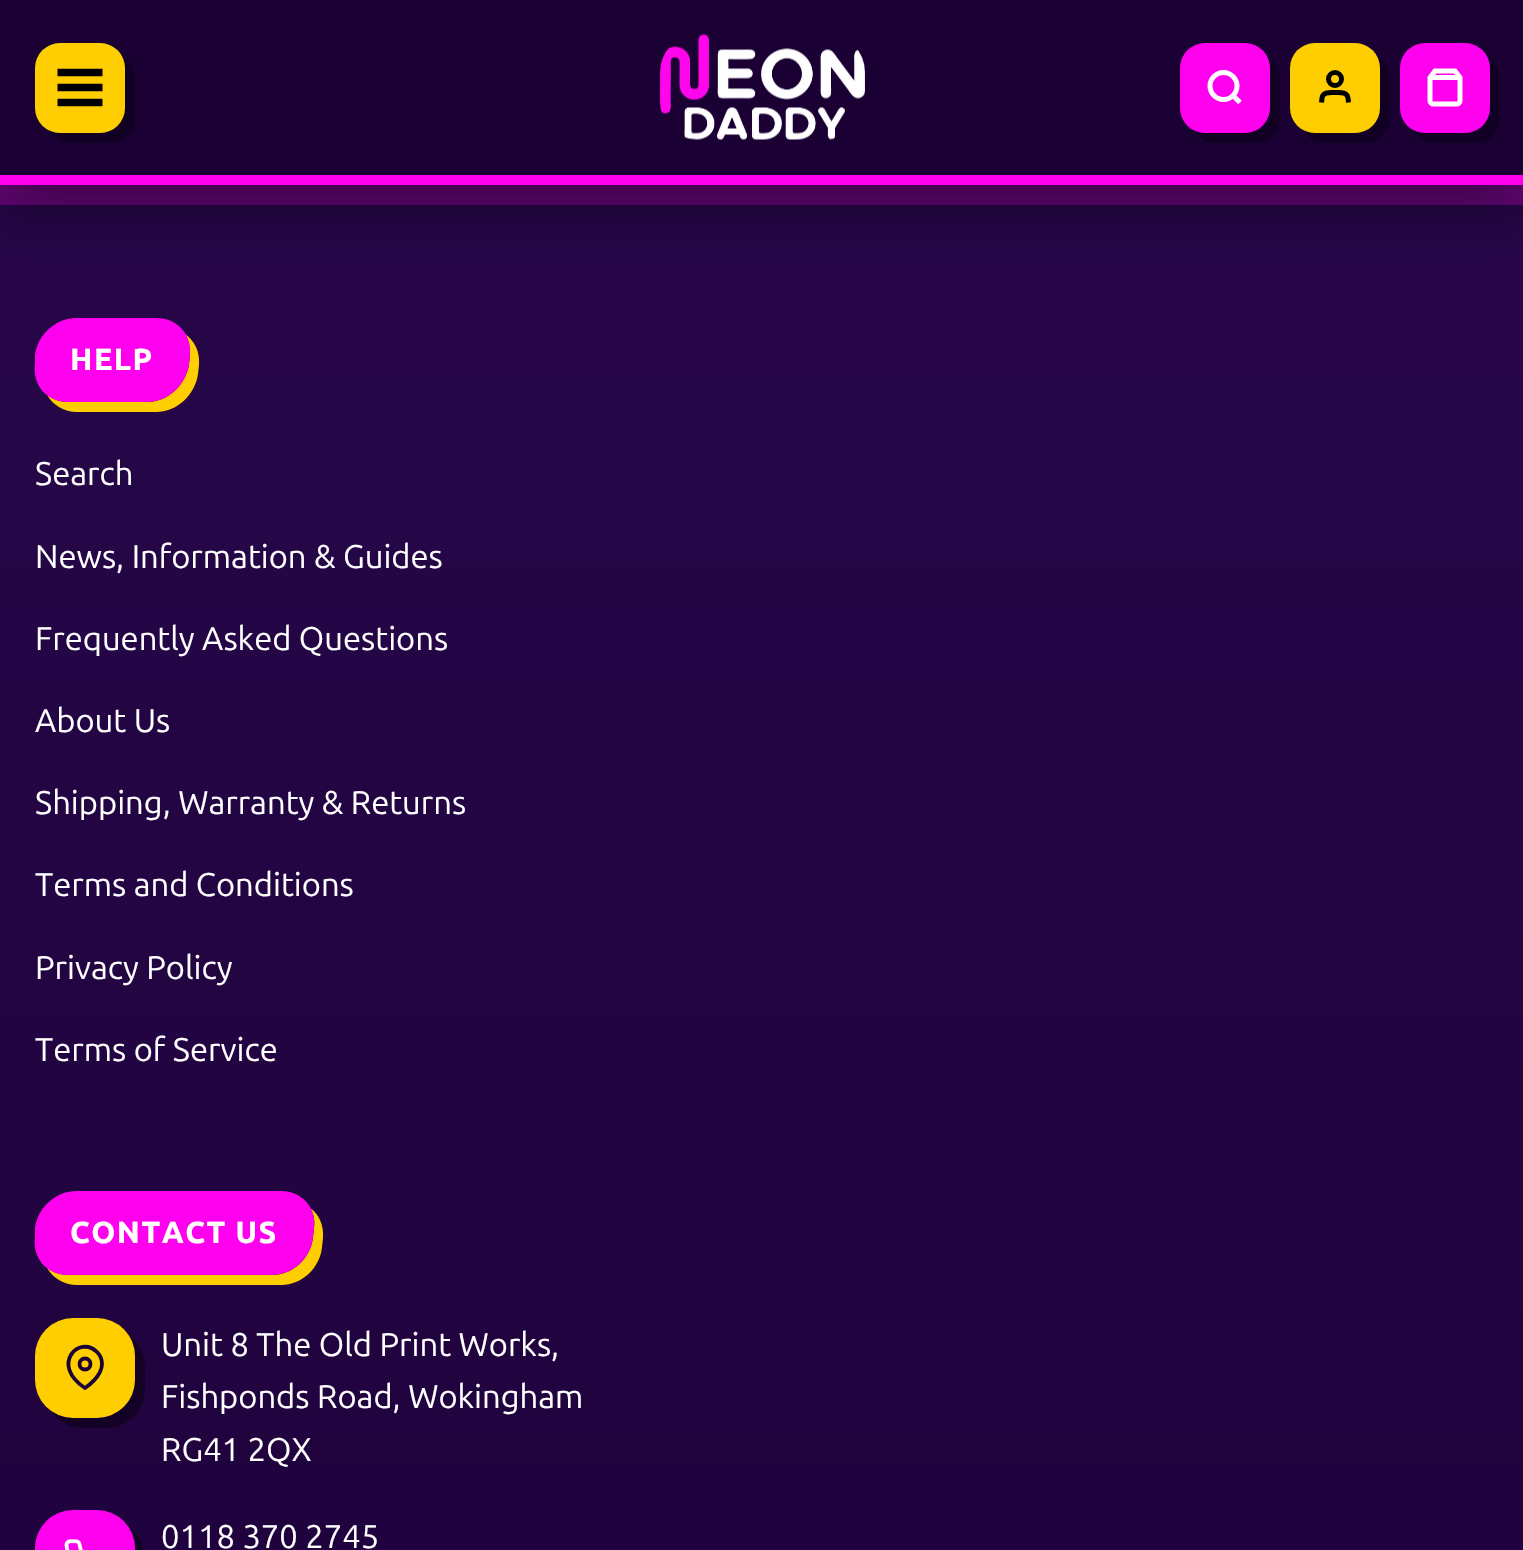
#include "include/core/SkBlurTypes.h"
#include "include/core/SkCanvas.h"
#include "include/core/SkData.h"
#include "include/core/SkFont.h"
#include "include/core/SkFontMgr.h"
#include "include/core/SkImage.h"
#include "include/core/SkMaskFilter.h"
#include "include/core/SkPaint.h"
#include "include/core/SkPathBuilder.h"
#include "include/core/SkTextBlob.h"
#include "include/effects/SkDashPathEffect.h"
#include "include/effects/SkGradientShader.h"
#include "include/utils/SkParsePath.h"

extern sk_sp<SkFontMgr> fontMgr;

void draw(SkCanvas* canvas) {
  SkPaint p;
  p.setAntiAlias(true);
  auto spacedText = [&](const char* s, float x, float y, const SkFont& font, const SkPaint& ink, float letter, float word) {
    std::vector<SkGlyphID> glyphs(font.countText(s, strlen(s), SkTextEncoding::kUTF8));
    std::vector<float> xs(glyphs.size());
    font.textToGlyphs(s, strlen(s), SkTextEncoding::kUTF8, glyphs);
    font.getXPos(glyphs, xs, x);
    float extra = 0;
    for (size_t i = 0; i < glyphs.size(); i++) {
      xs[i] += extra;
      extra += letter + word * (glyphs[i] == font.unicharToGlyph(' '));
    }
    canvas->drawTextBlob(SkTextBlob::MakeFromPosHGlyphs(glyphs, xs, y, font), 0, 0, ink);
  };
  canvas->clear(SK_ColorWHITE);
  {
    const SkColor colors[] = {SkColorSetRGB(45, 10, 84), SkColorSetRGB(26, 0, 51)};
    const float stops[] = {0, 1};
    const SkPoint ends[] = {{762, -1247}, {763, 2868}};
    p.setShader(SkGradientShader::MakeLinear(ends, colors, stops, 2, SkTileMode::kClamp));
    p.setAlpha(255);
  }
  canvas->drawRect(SkRect::MakeLTRB(0, 185, 1523, 1550), p);
  p.setShader(nullptr);
  p.setColor(SkColorSetARGB(77, 255, 0, 239));
  canvas->drawRect(SkRect::MakeLTRB(0, 185, 1523, 205), p);
  p.setColor(SkColorSetARGB(102, 0, 0, 0));
  p.setMaskFilter(SkMaskFilter::MakeBlur(kNormal_SkBlurStyle, 25));
  canvas->drawRect(SkRect::MakeLTRB(0, 25, 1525, 210), p);
  p.setMaskFilter(nullptr);
  p.setColor(SkColorSetRGB(26, 0, 51));
  canvas->drawRect(SkRect::MakeLTRB(0, 0, 1523, 175), p);
  p.setColor(SkColorSetRGB(255, 0, 239));
  canvas->drawRect(SkRect::MakeLTRB(0, 175, 1523, 185), p);
  p.setColor(SkColorSetRGB(18, 0, 36));
  canvas->drawPath(SkPathBuilder().moveTo(48, 129).cubicTo(52, 137, 60, 143, 70, 143).lineTo(110, 143).cubicTo(124, 143, 135, 132, 135, 118).lineTo(135, 78).cubicTo(135, 69, 130, 61, 122, 56).cubicTo(124, 60, 125, 63, 125, 68).lineTo(125, 108).cubicTo(125, 121, 114, 132, 100, 132).lineTo(60, 132).cubicTo(56, 132, 51, 131, 48, 129).close().detach(), p);
  p.setColor(SkColorSetRGB(255, 206, 0));
  canvas->drawRoundRect(SkRect::MakeLTRB(35, 43, 125, 133), 25, 25, p);
  p.setStyle(SkPaint::kStroke_Style);
  p.setStrokeWidth(7.5f);
  p.setColor(SK_ColorBLACK);
  canvas->drawPath(SkPathBuilder().moveTo(57.5f, 87.5f).lineTo(102.5f, 87.5f).moveTo(57.5f, 72.5f).lineTo(102.5f, 72.5f).moveTo(57.5f, 102.5f).lineTo(102.5f, 102.5f).detach(), p);
  canvas->drawImageRect(SkImages::DeferredFromEncodedData(SkData::MakeFromFileName("images/1.png")), SkRect::MakeLTRB(660, 34, 865, 140), SkSamplingOptions());
  p.setStyle(SkPaint::kFill_Style);
  p.setColor(SkColorSetRGB(18, 0, 36));
  canvas->drawPath(SkPathBuilder().moveTo(1193, 129).cubicTo(1197, 137, 1205, 143, 1215, 143).lineTo(1255, 143).cubicTo(1269, 143, 1280, 132, 1280, 118).lineTo(1280, 78).cubicTo(1280, 69, 1275, 61, 1267, 56).cubicTo(1269, 60, 1270, 63, 1270, 68).lineTo(1270, 108).cubicTo(1270, 121, 1259, 132, 1245, 132).lineTo(1205, 132).cubicTo(1201, 132, 1196, 131, 1193, 129).close().detach(), p);
  p.setColor(SkColorSetRGB(255, 0, 239));
  canvas->drawRoundRect(SkRect::MakeLTRB(1180, 43, 1270, 133), 25, 25, p);
  p.setStyle(SkPaint::kStroke_Style);
  p.setStrokeWidth(5);
  p.setColor(SK_ColorWHITE);
  canvas->drawCircle(1223.5f, 86, 13.5f, p);
  canvas->drawPath(SkPathBuilder().moveTo(1240, 102.5f).lineTo(1232.5f, 95).detach(), p);
  p.setStyle(SkPaint::kFill_Style);
  p.setColor(SkColorSetRGB(18, 0, 36));
  canvas->drawPath(SkPathBuilder().moveTo(1303, 129).cubicTo(1307, 137, 1315, 143, 1325, 143).lineTo(1365, 143).cubicTo(1379, 143, 1390, 132, 1390, 118).lineTo(1390, 78).cubicTo(1390, 69, 1385, 61, 1377, 56).cubicTo(1379, 60, 1380, 63, 1380, 68).lineTo(1380, 108).cubicTo(1380, 121, 1369, 132, 1355, 132).lineTo(1315, 132).cubicTo(1311, 132, 1306, 131, 1303, 129).close().detach(), p);
  p.setColor(SkColorSetRGB(255, 206, 0));
  canvas->drawRoundRect(SkRect::MakeLTRB(1290, 43, 1380, 133), 25, 25, p);
  p.setStyle(SkPaint::kStroke_Style);
  p.setColor(SK_ColorBLACK);
  canvas->drawPath(SkPathBuilder().moveTo(1348.5f, 102.5f).lineTo(1348, 98).cubicTo(1347, 91.5f, 1340, 92.5f, 1335, 92.5f).cubicTo(1330, 92.5f, 1323, 91.5f, 1322, 98).lineTo(1321.5f, 102.5f).detach(), p);
  canvas->drawCircle(1335, 79, 6.5f, p);
  p.setStyle(SkPaint::kFill_Style);
  p.setColor(SkColorSetRGB(18, 0, 36));
  canvas->drawPath(SkPathBuilder().moveTo(1413, 129).cubicTo(1417, 137, 1425, 143, 1435, 143).lineTo(1475, 143).cubicTo(1489, 143, 1500, 132, 1500, 118).lineTo(1500, 78).cubicTo(1500, 69, 1495, 61, 1487, 56).cubicTo(1489, 60, 1490, 63, 1490, 68).lineTo(1490, 108).cubicTo(1490, 121, 1479, 132, 1465, 132).lineTo(1425, 132).cubicTo(1421, 132, 1416, 131, 1413, 129).close().detach(), p);
  p.setColor(SkColorSetRGB(255, 0, 239));
  canvas->drawRoundRect(SkRect::MakeLTRB(1400, 43, 1490, 133), 25, 25, p);
  p.setStyle(SkPaint::kStroke_Style);
  p.setColor(SK_ColorWHITE);
  canvas->drawPath(SkPathBuilder().moveTo(1435, 71).lineTo(1430, 77.5f).lineTo(1430, 101).cubicTo(1430, 102.5f, 1431.5f, 104, 1433.5f, 104).lineTo(1456.5f, 104).cubicTo(1458.5f, 104, 1460, 102.5f, 1460, 101).lineTo(1460, 77.5f).lineTo(1455, 71).close().detach(), p);
  p.setStyle(SkPaint::kFill_Style);
  canvas->drawRect(SkRect::MakeLTRB(1430, 75, 1460, 80), p);
  p.setColor(SkColorSetRGB(255, 206, 0));
  canvas->drawPath(SkPathBuilder().moveTo(47, 395).cubicTo(53, 405, 64, 412, 77, 412).lineTo(156, 412).cubicTo(177, 412, 195, 395, 198, 374).lineTo(199, 365).cubicTo(200, 352, 195, 341, 185, 334).cubicTo(189, 340, 190, 347, 190, 355).lineTo(189, 364).cubicTo(186, 385, 168, 402, 147, 402).lineTo(68, 402).cubicTo(60, 402, 53, 399, 47, 395).close().detach(), p);
  p.setColor(SkColorSetRGB(255, 0, 239));
  canvas->drawPath(SkPathBuilder().moveTo(77, 318).lineTo(156, 318).cubicTo(177, 318, 192, 334, 190, 355).lineTo(189, 364).cubicTo(186, 385, 168, 402, 147, 402).lineTo(68, 402).cubicTo(47, 402, 32, 385, 35, 364).lineTo(35, 355).cubicTo(38, 334, 56, 318, 77, 318).close().detach(), p);
  p.setColor(SkColorSetRGB(255, 206, 0));
  canvas->drawPath(SkPathBuilder().moveTo(47, 1268).cubicTo(53, 1278, 64, 1285, 77, 1285).lineTo(281, 1285).cubicTo(302, 1285, 320, 1268, 322, 1247).lineTo(323, 1238).cubicTo(324, 1225, 319, 1214, 310, 1208).cubicTo(314, 1214, 315, 1221, 314, 1228).lineTo(313, 1237).cubicTo(311, 1258, 293, 1275, 272, 1275).lineTo(68, 1275).cubicTo(60, 1275, 53, 1272, 47, 1268).close().detach(), p);
  p.setColor(SkColorSetRGB(255, 0, 239));
  canvas->drawPath(SkPathBuilder().moveTo(77, 1191).lineTo(281, 1191).cubicTo(301, 1191, 317, 1207, 314, 1228).lineTo(313, 1237).cubicTo(311, 1258, 293, 1275, 272, 1275).lineTo(68, 1275).cubicTo(47, 1275, 32, 1258, 35, 1237).lineTo(35, 1228).cubicTo(38, 1207, 56, 1191, 77, 1191).close().detach(), p);
  p.setColor(SkColorSetRGB(20, 2, 38));
  canvas->drawPath(SkPathBuilder().moveTo(51, 1411).cubicTo(58, 1421, 70, 1428, 83, 1428).lineTo(107, 1428).cubicTo(128, 1428, 145, 1411, 145, 1390).lineTo(145, 1366).cubicTo(145, 1353, 139, 1342, 129, 1335).cubicTo(133, 1341, 135, 1348, 135, 1355).lineTo(135, 1380).cubicTo(135, 1401, 118, 1418, 98, 1418).lineTo(72, 1418).cubicTo(65, 1418, 57, 1415, 51, 1411).close().detach(), p);
  p.setColor(SkColorSetRGB(255, 206, 0));
  canvas->drawRoundRect(SkRect::MakeLTRB(35, 1318, 135, 1418), 38, 38, p);
  p.setStyle(SkPaint::kStroke_Style);
  p.setStrokeWidth(3.8f);
  p.setColor(SkColorSetRGB(26, 0, 51));
  canvas->drawPath(SkPathBuilder().moveTo(102, 1364).cubicTo(102, 1377, 85, 1388, 85, 1388).cubicTo(49.5f, 1364.5f, 79.5f, 1334.5f, 97, 1352).cubicTo(100, 1355, 102, 1359.5f, 102, 1364).close().detach(), p);
  canvas->drawCircle(85, 1364, 5.5f, p);
  p.setStyle(SkPaint::kFill_Style);
  p.setColor(SkColorSetRGB(19, 2, 37));
  canvas->drawPath(SkPathBuilder().moveTo(52, 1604).cubicTo(59, 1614, 70, 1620, 83, 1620).lineTo(107, 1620).cubicTo(128, 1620, 145, 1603, 145, 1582).lineTo(145, 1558).cubicTo(145, 1545, 139, 1534, 129, 1527).cubicTo(133, 1533, 135, 1540, 135, 1548).lineTo(135, 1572).cubicTo(135, 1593, 118, 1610, 98, 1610).lineTo(72, 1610).cubicTo(65, 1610, 58, 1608, 52, 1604).close().detach(), p);
  p.setColor(SkColorSetRGB(255, 0, 239));
  canvas->drawRoundRect(SkRect::MakeLTRB(35, 1510, 135, 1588), 38, 38, p);
  canvas->drawImageRect(SkImages::DeferredFromEncodedData(SkData::MakeFromFileName("images/2.png")), SkRect::MakeLTRB(64, 1539, 83, 1550), SkSamplingOptions());
  SkFont font1(fontMgr->matchFamilyStyle("Ubuntu", SkFontStyle(800, SkFontStyle::kNormal_Width, SkFontStyle::kUpright_Slant)), 30.5f);
  font1.setSubpixel(true);
  p.setColor(SK_ColorWHITE);
  spacedText("HELP", 70, 370, font1, p, 1.5f, 0);
  SkFont font2(fontMgr->matchFamilyStyle("Ubuntu", SkFontStyle::Normal()), 32.75f);
  font2.setSubpixel(true);
  canvas->drawString("Search", 35, 485, font2, p);
  canvas->drawString("News, Information & Guides", 35, 568, font2, p);
  canvas->drawString("Frequently Asked Questions", 35, 650, font2, p);
  canvas->drawString("About Us", 35, 732, font2, p);
  canvas->drawString("Shipping, Warranty & Returns", 35, 814, font2, p);
  canvas->drawString("Terms and Conditions", 35, 896, font2, p);
  canvas->drawString("Privacy Policy", 35, 979, font2, p);
  canvas->drawString("Terms of Service", 35, 1061, font2, p);
  spacedText("CONTACT US", 70, 1243, font1, p, 1.5f, 0);
  canvas->drawString("Unit 8 The Old Print Works,", 161, 1356, font2, p);
  canvas->drawString("Fishponds Road, Wokingham", 161, 1408, font2, p);
  canvas->drawString("RG41 2QX", 161, 1461, font2, p);
  canvas->drawString("0118 370 2745", 161, 1548, font2, p);
}
